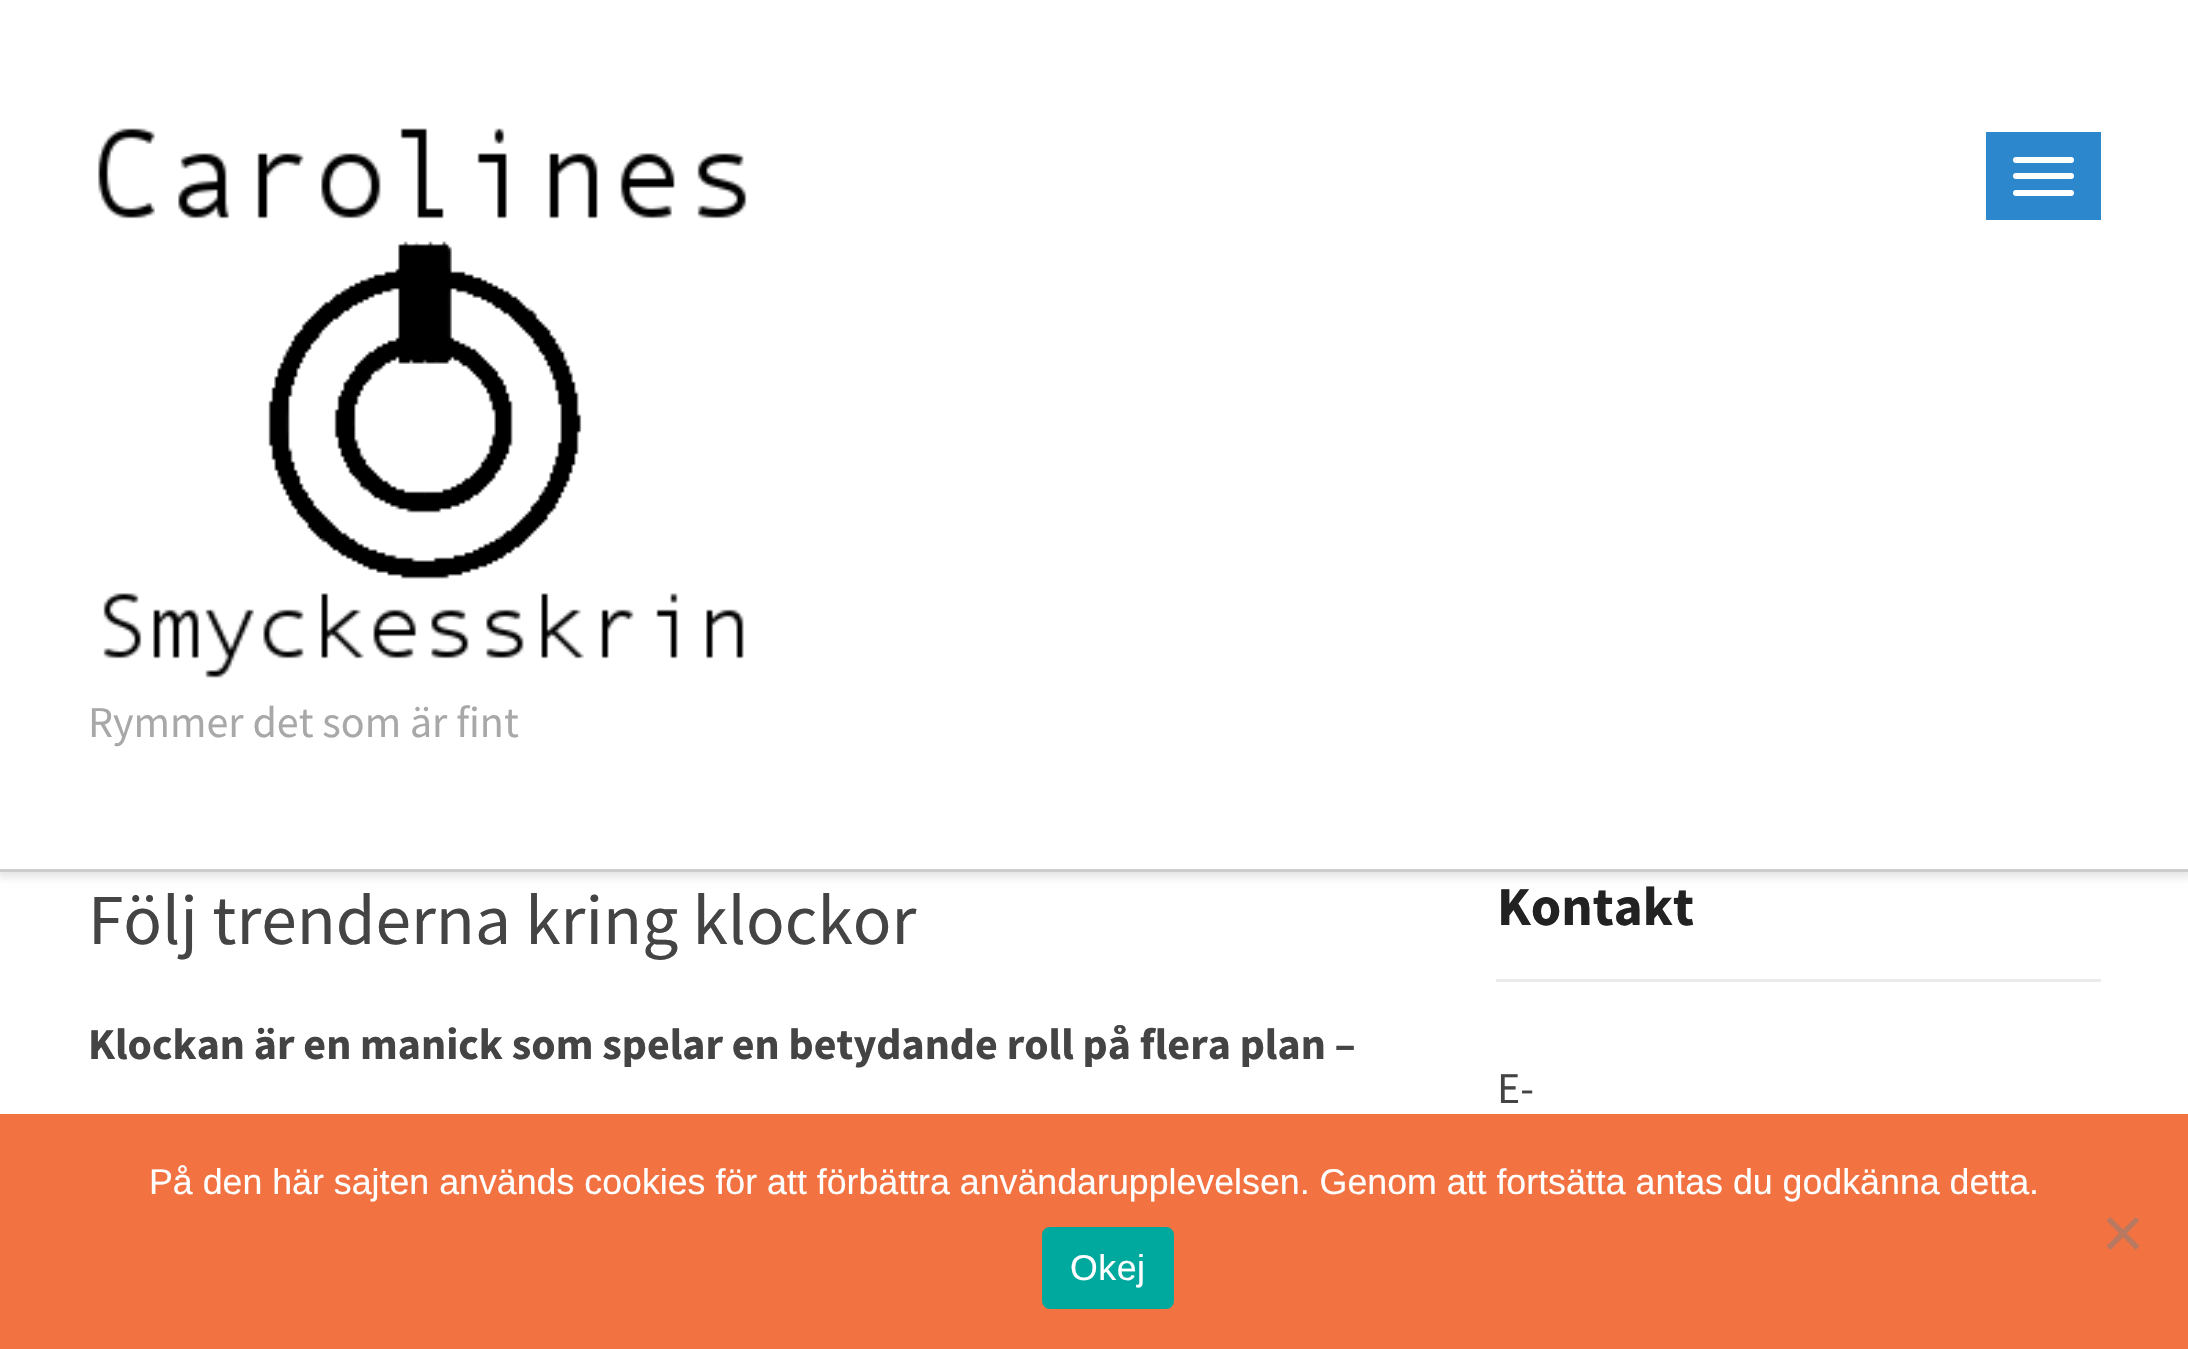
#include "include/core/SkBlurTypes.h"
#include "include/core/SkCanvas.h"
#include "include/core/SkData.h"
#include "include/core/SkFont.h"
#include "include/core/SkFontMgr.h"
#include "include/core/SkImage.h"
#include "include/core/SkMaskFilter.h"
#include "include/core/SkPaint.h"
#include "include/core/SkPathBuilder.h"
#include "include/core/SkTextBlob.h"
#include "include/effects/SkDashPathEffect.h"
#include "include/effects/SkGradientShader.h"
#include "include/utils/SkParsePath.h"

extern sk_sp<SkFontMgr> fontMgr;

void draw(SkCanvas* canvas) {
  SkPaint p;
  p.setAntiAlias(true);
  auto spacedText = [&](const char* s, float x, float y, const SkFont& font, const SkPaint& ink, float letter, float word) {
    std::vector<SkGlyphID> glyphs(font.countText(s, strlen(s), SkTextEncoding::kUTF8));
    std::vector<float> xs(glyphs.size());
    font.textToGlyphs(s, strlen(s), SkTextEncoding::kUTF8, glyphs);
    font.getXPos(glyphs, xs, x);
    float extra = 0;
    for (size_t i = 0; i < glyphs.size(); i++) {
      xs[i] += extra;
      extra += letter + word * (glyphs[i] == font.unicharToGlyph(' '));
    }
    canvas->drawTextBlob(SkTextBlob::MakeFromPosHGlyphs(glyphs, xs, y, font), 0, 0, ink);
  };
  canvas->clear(SK_ColorWHITE);
  canvas->save();
  canvas->clipPath(SkPathBuilder(SkPathFillType::kEvenOdd).moveTo(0, 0).lineTo(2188, 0).lineTo(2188, 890).lineTo(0, 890).close().moveTo(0, 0).lineTo(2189, 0).lineTo(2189, 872).lineTo(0, 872).close().detach(), true);
  p.setColor(SkColorSetARGB(26, 0, 0, 0));
  p.setMaskFilter(SkMaskFilter::MakeBlur(kNormal_SkBlurStyle, 4));
  canvas->drawRect(SkRect::MakeLTRB(-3, 0, 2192, 877), p);
  p.setMaskFilter(nullptr);
  canvas->restore();
  p.setColor(SkColorSetARGB(51, 0, 0, 0));
  canvas->drawRect(SkRect::MakeLTRB(0, 869, 2188, 872), p);
  p.setColor(SkColorSetRGB(45, 135, 204));
  canvas->drawRect(SkRect::MakeLTRB(1986, 132, 2101, 220), p);
  p.setColor(SK_ColorWHITE);
  canvas->drawRoundRect(SkRect::MakeLTRB(2013, 157, 2074, 163), 3, 3, p);
  canvas->drawRoundRect(SkRect::MakeLTRB(2013, 173, 2074, 179), 3, 3, p);
  canvas->drawRoundRect(SkRect::MakeLTRB(2013, 190, 2074, 196), 3, 3, p);
  canvas->drawImageRect(SkImages::DeferredFromEncodedData(SkData::MakeFromFileName("images/1.png")), SkRect::MakeLTRB(98, 128, 747, 678), SkSamplingOptions());
  p.setColor(SkColorSetRGB(235, 235, 235));
  canvas->drawRect(SkRect::MakeLTRB(1496, 979, 2101, 982), p);
  p.setColor(SkColorSetRGB(242, 114, 66));
  canvas->drawRect(SkRect::MakeLTRB(0, 1114, 2188, 1349), p);
  p.setColor(SkColorSetRGB(185, 121, 97));
  canvas->drawPath(SkPathBuilder().moveTo(2135.5f, 1217).lineTo(2139.5f, 1220.5f).lineTo(2110.5f, 1250).lineTo(2106.5f, 1246).close().detach(), p);
  canvas->drawPath(SkPathBuilder().moveTo(2106.5f, 1220.5f).lineTo(2110.5f, 1217).lineTo(2139.5f, 1246).lineTo(2135.5f, 1250).close().detach(), p);
  p.setColor(SkColorSetRGB(0, 169, 157));
  canvas->drawRoundRect(SkRect::MakeLTRB(1042, 1227, 1174, 1309), 8, 8, p);
  SkFont font1(fontMgr->matchFamilyStyle("Source Sans Pro", SkFontStyle::Normal()), 44);
  font1.setSubpixel(true);
  p.setColor(SkColorSetRGB(168, 168, 168));
  canvas->drawString("Rymmer det som är fint", 88, 737, font1, p);
  SkFont font2(fontMgr->matchFamilyStyle("Source Sans Pro", SkFontStyle::Normal()), 71.5f);
  font2.setSubpixel(true);
  p.setColor(SkColorSetRGB(68, 68, 68));
  canvas->drawString("Följ trenderna kring klockor", 88, 944, font2, p);
  SkFont font3(fontMgr->matchFamilyStyle("Source Sans Pro", SkFontStyle::Bold()), 44);
  font3.setSubpixel(true);
  canvas->drawString("Klockan är en manick som spelar en betydande roll på flera plan –", 88, 1059, font3, p);
  SkFont font4(fontMgr->matchFamilyStyle("Source Sans Pro", SkFontStyle::Bold()), 55);
  font4.setSubpixel(true);
  p.setColor(SkColorSetRGB(34, 34, 34));
  canvas->drawString("Kontakt", 1497, 925, font4, p);
  p.setColor(SkColorSetRGB(68, 68, 68));
  canvas->drawString("E-", 1497, 1103, font1, p);
  SkFont font5(fontMgr->matchFamilyStyle("Liberation Sans", SkFontStyle::Normal()), 35.75f);
  font5.setSubpixel(true);
  p.setColor(SK_ColorWHITE);
  canvas->drawString("På den här sajten används cookies för att förbättra användarupplevelsen. Genom att fortsätta antas du godkänna detta.", 149, 1194, font5, p);
  spacedText("Okej", 1070, 1280, font5, p, 0.5f, 0);
}
